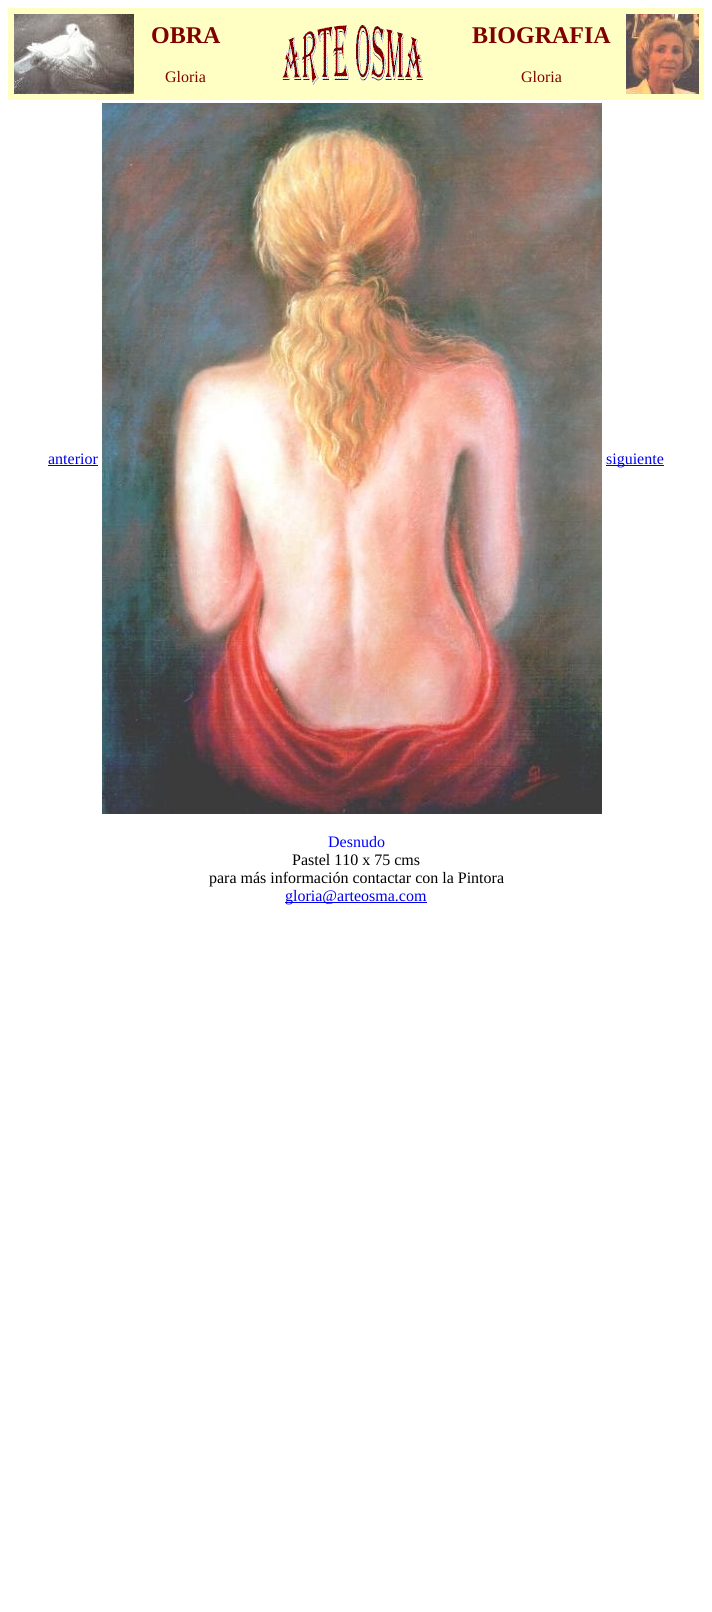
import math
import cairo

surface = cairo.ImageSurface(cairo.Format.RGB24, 712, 1612)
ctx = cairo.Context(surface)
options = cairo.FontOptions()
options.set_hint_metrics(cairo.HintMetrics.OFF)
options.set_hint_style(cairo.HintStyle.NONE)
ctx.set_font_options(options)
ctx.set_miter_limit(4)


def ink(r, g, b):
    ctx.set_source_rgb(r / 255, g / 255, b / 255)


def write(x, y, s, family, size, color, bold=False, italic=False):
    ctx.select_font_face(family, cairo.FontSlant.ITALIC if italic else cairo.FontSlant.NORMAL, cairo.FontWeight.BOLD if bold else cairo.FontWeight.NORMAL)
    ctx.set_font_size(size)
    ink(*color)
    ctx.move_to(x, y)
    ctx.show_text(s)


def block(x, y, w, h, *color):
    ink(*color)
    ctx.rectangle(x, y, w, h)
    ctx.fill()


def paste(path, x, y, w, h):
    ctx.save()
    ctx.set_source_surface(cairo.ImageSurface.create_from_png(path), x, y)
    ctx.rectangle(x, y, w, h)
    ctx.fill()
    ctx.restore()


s1 = dict(family="Liberation Serif", size=24, color=(128, 0, 0), bold=True)
s2 = dict(family="Liberation Serif", size=16, color=(128, 0, 0))
s3 = dict(family="Liberation Serif", size=16, color=(0, 0, 238))
s4 = dict(family="Liberation Serif", size=16, color=(0, 0, 255))
s5 = dict(family="Liberation Serif", size=16, color=(0, 0, 0))

ink(255, 255, 255)
ctx.paint()
block(8, 8, 696, 92, 255, 255, 196)
paste("pic1.png", 14, 14, 120, 80)
write(151, 43, "OBRA", **s1)
write(165, 82, "Gloria", **s2)
paste("pic2.png", 282, 25, 141, 60)
write(472, 43, "BIOGRAFIA", **s1)
write(521, 82, "Gloria", **s2)
paste("pic3.png", 626, 14, 73, 80)
write(48, 464, "anterior", **s3)
block(48, 465, 50, 1, 0, 0, 238)
paste("pic4.png", 102, 103, 500, 711)
block(606, 465, 58, 1, 0, 0, 238)
write(606, 464, "siguiente", **s3)
write(328, 847, "Desnudo", **s4)
write(292, 865, "Pastel 110 x 75 cms", **s5)
write(209, 883, "para más información contactar con la Pintora", **s5)
block(285, 902, 142, 1, 0, 0, 238)
write(285, 901, "gloria@arteosma.com", **s3)
surface.write_to_png("screenshot.png")
